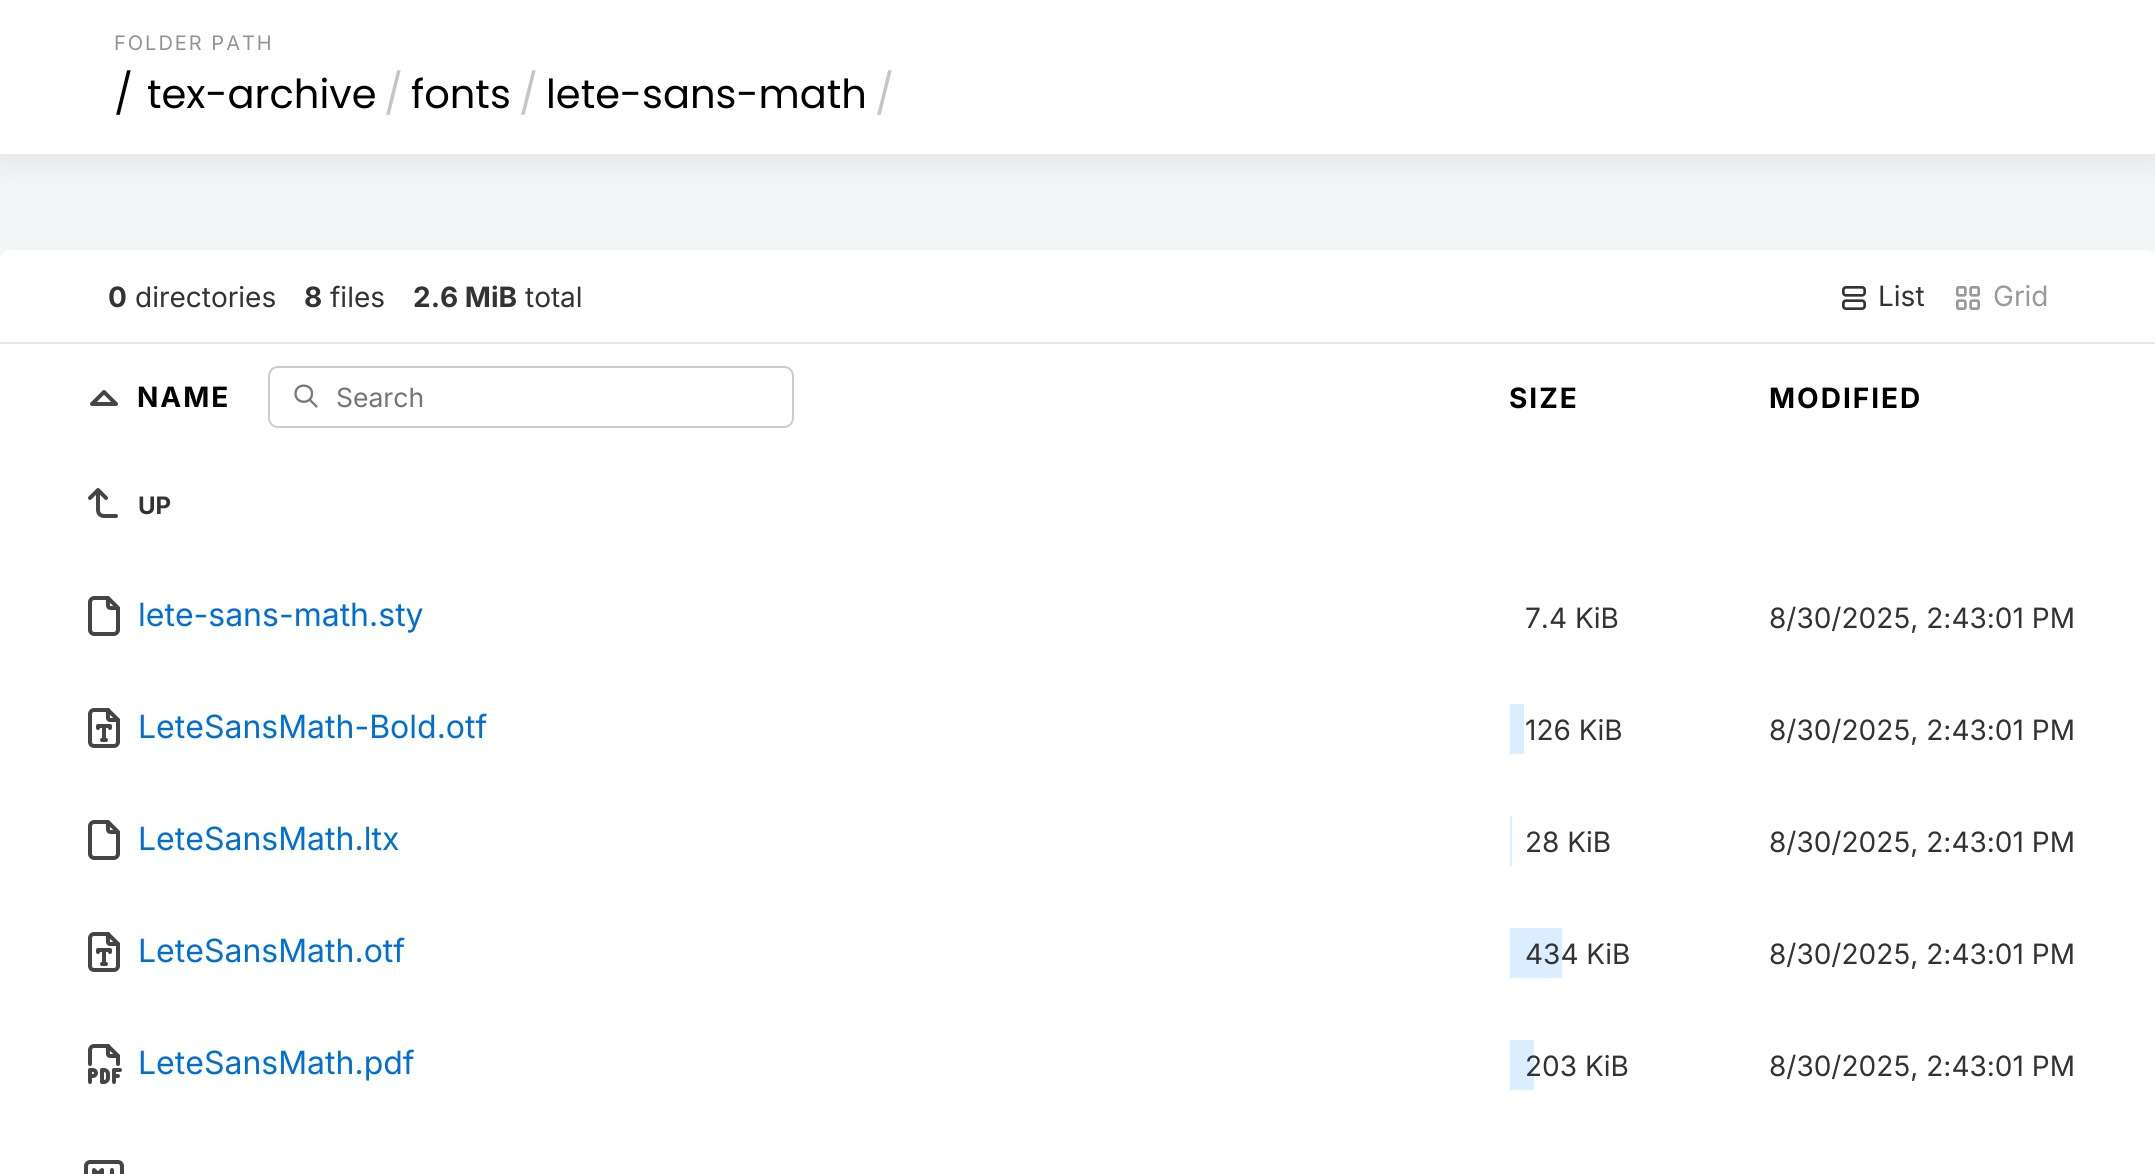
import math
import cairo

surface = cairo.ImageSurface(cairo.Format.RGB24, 2155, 1174)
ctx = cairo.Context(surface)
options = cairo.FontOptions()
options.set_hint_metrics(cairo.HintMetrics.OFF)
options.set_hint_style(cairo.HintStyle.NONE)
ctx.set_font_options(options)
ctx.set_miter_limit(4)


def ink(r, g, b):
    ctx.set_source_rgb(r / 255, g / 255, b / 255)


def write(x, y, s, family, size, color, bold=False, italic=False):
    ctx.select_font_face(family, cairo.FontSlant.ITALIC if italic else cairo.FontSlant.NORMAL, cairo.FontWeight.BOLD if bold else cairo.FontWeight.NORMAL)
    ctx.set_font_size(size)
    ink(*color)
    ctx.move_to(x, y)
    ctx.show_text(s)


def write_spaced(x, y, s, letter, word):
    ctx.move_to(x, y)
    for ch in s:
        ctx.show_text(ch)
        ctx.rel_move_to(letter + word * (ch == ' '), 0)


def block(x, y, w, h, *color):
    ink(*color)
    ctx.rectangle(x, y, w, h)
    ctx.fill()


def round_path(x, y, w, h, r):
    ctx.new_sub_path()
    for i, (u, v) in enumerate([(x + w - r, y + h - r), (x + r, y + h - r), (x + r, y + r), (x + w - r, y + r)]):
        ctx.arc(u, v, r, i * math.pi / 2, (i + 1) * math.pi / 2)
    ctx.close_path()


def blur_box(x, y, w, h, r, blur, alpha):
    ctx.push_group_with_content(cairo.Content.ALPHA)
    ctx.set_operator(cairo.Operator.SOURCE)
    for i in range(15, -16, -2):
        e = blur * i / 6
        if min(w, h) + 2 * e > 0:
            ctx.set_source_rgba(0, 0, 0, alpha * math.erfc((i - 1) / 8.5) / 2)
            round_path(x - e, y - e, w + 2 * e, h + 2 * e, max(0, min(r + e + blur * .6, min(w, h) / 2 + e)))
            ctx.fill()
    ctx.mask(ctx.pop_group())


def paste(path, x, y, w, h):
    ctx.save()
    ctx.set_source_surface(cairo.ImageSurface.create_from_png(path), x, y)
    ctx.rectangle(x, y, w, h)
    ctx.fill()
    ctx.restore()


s1 = dict(family="Poppins", size=40, color=(0, 0, 0))
s2 = dict(family="Poppins", size=40, color=(197, 197, 197))
s3 = dict(family="Inter", size=28, color=(51, 51, 51), bold=True)
s4 = dict(family="Inter", size=28, color=(51, 51, 51))
s5 = dict(family="Inter", size=28, color=(154, 154, 154))
s6 = dict(family="Inter", size=26.5, color=(117, 117, 117))
s7 = dict(family="Inter", size=24, color=(51, 51, 51), bold=True)
s8 = dict(family="Inter", size=32, color=(0, 110, 211))

ink(243, 246, 247)
ctx.paint()
ink(0, 0, 0)
blur_box(0, 0, 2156, 154, 0, 20, 0.1)
block(0, 0, 2155, 154, 255, 255, 255)
ctx.select_font_face("Inter")
ctx.set_font_size(20)
ink(147, 147, 147)
write_spaced(114, 50, "FOLDER PATH", 2, 0)
write(114, 108, "/", **s1)
write(147, 108, "tex-archive", **s1)
write(384, 108, "/", **s2)
write(411, 108, "fonts", **s1)
write(519, 108, "/", **s2)
write(546, 108, "lete-sans-math", **s1)
write(875, 108, "/", **s2)
ink(255, 255, 255)
round_path(0, 250, 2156, 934, 10)
ctx.fill()
block(0, 342, 2155, 2, 229, 233, 234)
write(108, 307, "0", **s3)
write(135, 307, "directories", **s4)
write(304, 307, "8", **s3)
write(330, 307, "files", **s4)
write(413, 307, "2.6 MiB", **s3)
write(525, 307, "total", **s4)
paste("pic1.png", 1842, 286, 24, 24)
write(1878, 306, "List", **s4)
paste("pic2.png", 1956, 286, 24, 24)
write(1993, 306, "Grid", **s5)
ctx.new_path()
ctx.move_to(116, 404)
ctx.line_to(104, 392)
ctx.line_to(92, 404)
ctx.line_to(116, 404)
ink(69, 69, 69)
ctx.set_line_width(4)
ctx.set_line_cap(cairo.LineCap.ROUND)
ctx.set_line_join(cairo.LineJoin.ROUND)
ctx.stroke()
ctx.select_font_face("Inter", cairo.FontSlant.NORMAL, cairo.FontWeight.BOLD)
ink(0, 0, 0)
write_spaced(137, 407, "NAME", 2, 0)
ctx.new_path()
ctx.move_to(295.5, 393.5)
ctx.curve_to(295.5, 404.5, 312, 404.5, 312, 393.5)
ctx.curve_to(312, 383, 295.5, 383, 295.5, 393.5)
ctx.move_to(316.5, 406.5)
ctx.line_to(309.5, 399.5)
ink(119, 119, 119)
ctx.set_line_width(2.3)
ctx.stroke()
round_path(269, 367, 524, 60, 9)
ink(204, 204, 204)
ctx.set_line_width(2)
ctx.set_line_cap(cairo.LineCap.BUTT)
ctx.set_line_join(cairo.LineJoin.MITER)
ctx.stroke()
write(336, 407, "Search", **s6)
ctx.select_font_face("Inter", cairo.FontSlant.NORMAL, cairo.FontWeight.BOLD)
ctx.set_font_size(28)
ink(0, 0, 0)
write_spaced(1509, 408, "SIZE", 2, 0)
write_spaced(1769, 408, "MODIFIED", 2, 0)
ctx.new_path()
ctx.move_to(116, 516)
ctx.line_to(104, 516)
ctx.curve_to(100.5, 516, 98, 513.5, 98, 510)
ctx.line_to(98, 490)
ctx.line_to(90, 498)
ctx.move_to(106, 498)
ctx.line_to(98, 490)
ink(69, 69, 69)
ctx.set_line_width(4)
ctx.set_line_cap(cairo.LineCap.ROUND)
ctx.set_line_join(cairo.LineJoin.ROUND)
ctx.stroke()
write(138, 514, "UP", **s7)
ctx.new_path()
ctx.move_to(108, 598)
ctx.curve_to(108, 609.5, 106.5, 608, 118, 608)
ctx.move_to(114, 634)
ctx.line_to(94, 634)
ctx.curve_to(92, 634, 90, 632, 90, 630)
ctx.line_to(90, 602)
ctx.curve_to(90, 600, 92, 598, 94, 598)
ctx.line_to(108, 598)
ctx.line_to(118, 608)
ctx.line_to(118, 630)
ctx.curve_to(118, 632, 116, 634, 114, 634)
ctx.close_path()
ink(69, 69, 69)
ctx.stroke()
write(138, 626, "lete-sans-math.sty", **s8)
write(1525, 628, "7.4 KiB", **s4)
write(1769, 628, "8/30/2025, 2:43:01 PM", **s4)
paste("pic3.png", 88, 708, 32, 40)
write(138, 738, "LeteSansMath-Bold.otf", **s8)
block(1510, 704, 14, 50, 219, 238, 255)
write(1525, 740, "126 KiB", **s4)
write(1769, 740, "8/30/2025, 2:43:01 PM", **s4)
ctx.new_path()
ctx.move_to(108, 822)
ctx.curve_to(108, 833.5, 106.5, 832, 118, 832)
ctx.move_to(114, 858)
ctx.line_to(94, 858)
ctx.curve_to(92, 858, 90, 856, 90, 854)
ctx.line_to(90, 826)
ctx.curve_to(90, 824, 92, 822, 94, 822)
ctx.line_to(108, 822)
ctx.line_to(118, 832)
ctx.line_to(118, 854)
ctx.curve_to(118, 856, 116, 858, 114, 858)
ctx.close_path()
ink(69, 69, 69)
ctx.stroke()
write(138, 850, "LeteSansMath.ltx", **s8)
block(1510, 816, 2, 50, 219, 238, 255)
write(1525, 852, "28 KiB", **s4)
write(1769, 852, "8/30/2025, 2:43:01 PM", **s4)
paste("pic3.png", 88, 932, 32, 40)
write(138, 962, "LeteSansMath.otf", **s8)
block(1510, 928, 52, 50, 219, 238, 255)
write(1525, 964, "434 KiB", **s4)
write(1769, 964, "8/30/2025, 2:43:01 PM", **s4)
paste("pic4.png", 88, 1044, 34, 40)
write(138, 1074, "LeteSansMath.pdf", **s8)
block(1510, 1040, 24, 50, 219, 238, 255)
write(1525, 1076, "203 KiB", **s4)
write(1769, 1076, "8/30/2025, 2:43:01 PM", **s4)
paste("pic5.png", 84, 1160, 40, 14)
surface.write_to_png("screenshot.png")
